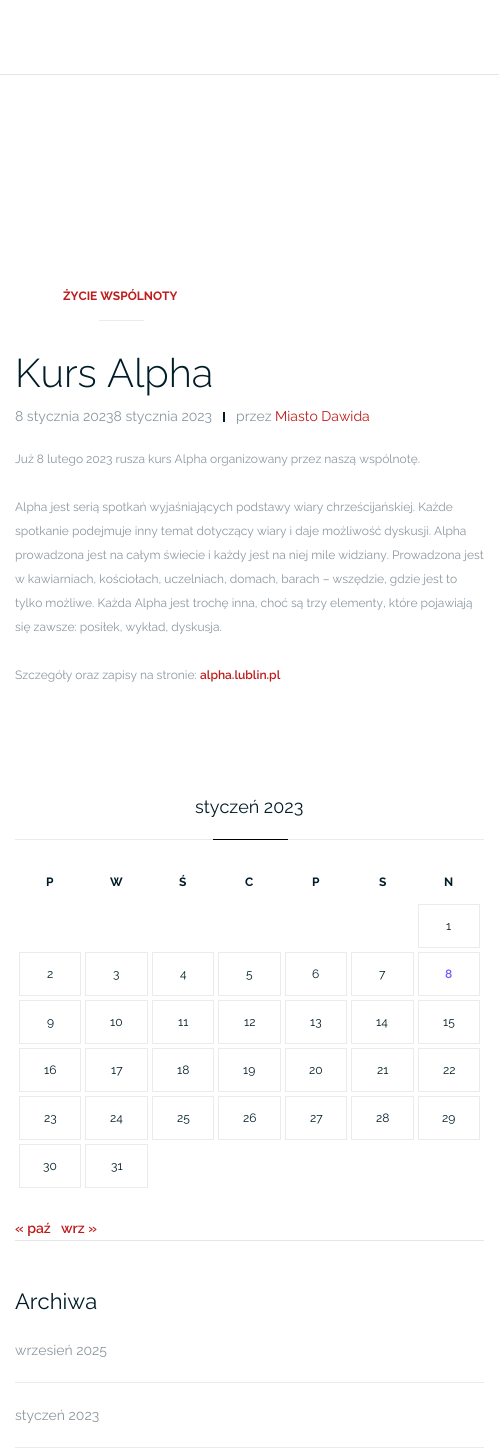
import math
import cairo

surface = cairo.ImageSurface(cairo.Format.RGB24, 499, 1449)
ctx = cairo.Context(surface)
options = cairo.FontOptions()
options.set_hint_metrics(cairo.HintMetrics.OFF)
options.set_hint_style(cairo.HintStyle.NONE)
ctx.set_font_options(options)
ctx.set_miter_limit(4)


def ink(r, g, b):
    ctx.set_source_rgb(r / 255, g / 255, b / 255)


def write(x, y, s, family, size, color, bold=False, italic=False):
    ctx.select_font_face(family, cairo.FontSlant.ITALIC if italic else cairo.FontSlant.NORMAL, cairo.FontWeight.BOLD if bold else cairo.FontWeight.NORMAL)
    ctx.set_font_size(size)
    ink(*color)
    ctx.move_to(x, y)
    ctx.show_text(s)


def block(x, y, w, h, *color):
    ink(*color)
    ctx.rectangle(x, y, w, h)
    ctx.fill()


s1 = dict(family="Raleway", size=12, color=(191, 28, 28), bold=True)
s2 = dict(family="Raleway Light", size=40, color=(0, 28, 40))
s3 = dict(family="Raleway", size=14, color=(140, 151, 158))
s4 = dict(family="Raleway", size=14, color=(191, 28, 28))
s5 = dict(family="Raleway", size=12, color=(140, 151, 158))
s6 = dict(family="Raleway SemiBold", size=12, color=(191, 28, 28))
s7 = dict(family="Raleway", size=18, color=(0, 28, 40))
s8 = dict(family="Raleway", size=12, color=(0, 28, 40), bold=True)
s9 = dict(family="Raleway", size=12, color=(0, 28, 40))
s10 = dict(family="Raleway SemiBold", size=12, color=(116, 92, 249))
s11 = dict(family="Raleway SemiBold", size=14, color=(191, 28, 28))
s12 = dict(family="Raleway", size=22, color=(0, 28, 40))

ink(255, 255, 255)
ctx.paint()
block(0, 74, 499, 1, 230, 230, 230)
write(63, 300, "ŻYCIE WSPÓLNOTY", **s1)
block(99, 320, 45, 1, 235, 235, 235)
write(15, 387, "Kurs Alpha", **s2)
write(15, 421, "8 stycznia 20238 stycznia 2023", **s3)
block(223, 412, 2, 10, 0, 28, 40)
write(236, 421, "przez", **s3)
write(275, 421, "Miasto Dawida", **s4)
write(15, 463, "Już 8 lutego 2023 rusza kurs Alpha organizowany przez naszą wspólnotę.", **s5)
write(15, 511, "Alpha jest serią spotkań wyjaśniających podstawy wiary chrześcijańskiej. Każde", **s5)
write(15, 535, "spotkanie podejmuje inny temat dotyczący wiary i daje możliwość dyskusji. Alpha", **s5)
write(15, 559, "prowadzona jest na całym świecie i każdy jest na niej mile widziany. Prowadzona jest", **s5)
write(15, 583, "w kawiarniach, kościołach, uczelniach, domach, barach – wszędzie, gdzie jest to", **s5)
write(15, 607, "tylko możliwe. Każda Alpha jest trochę inna, choć są trzy elementy, które pojawiają", **s5)
write(15, 631, "się zawsze: posiłek, wykład, dyskusja.", **s5)
write(15, 679, "Szczegóły oraz zapisy na stronie:", **s5)
write(200, 679, "alpha.lublin.pl", **s6)
block(15, 839, 469, 1, 235, 235, 235)
write(195, 813, "styczeń 2023", **s7)
block(213, 839, 75, 1, 0, 0, 0)
write(46, 886, "P", **s8)
write(110, 886, "W", **s8)
write(179, 886, "Ś", **s8)
write(245, 886, "C", **s8)
write(312, 886, "P", **s8)
write(379, 886, "S", **s8)
write(444, 886, "N", **s8)
ctx.rectangle(418.5, 904.5, 61, 43)
ink(235, 235, 235)
ctx.set_line_width(1)
ctx.stroke()
write(446, 930, "1", **s9)
ctx.rectangle(19.5, 952.5, 61, 43)
ink(235, 235, 235)
ctx.stroke()
write(47, 978, "2", **s9)
ctx.rectangle(85.5, 952.5, 62, 43)
ink(235, 235, 235)
ctx.stroke()
write(113, 978, "3", **s9)
ctx.rectangle(152.5, 952.5, 61, 43)
ink(235, 235, 235)
ctx.stroke()
write(180, 978, "4", **s9)
ctx.rectangle(218.5, 952.5, 62, 43)
ink(235, 235, 235)
ctx.stroke()
write(246, 978, "5", **s9)
ctx.rectangle(285.5, 952.5, 61, 43)
ink(235, 235, 235)
ctx.stroke()
write(312, 978, "6", **s9)
ctx.rectangle(351.5, 952.5, 62, 43)
ink(235, 235, 235)
ctx.stroke()
write(379, 978, "7", **s9)
ctx.rectangle(418.5, 952.5, 61, 43)
ink(235, 235, 235)
ctx.stroke()
write(445, 978, "8", **s10)
ctx.rectangle(19.5, 1000.5, 61, 43)
ink(235, 235, 235)
ctx.stroke()
write(47, 1026, "9", **s9)
ctx.rectangle(85.5, 1000.5, 62, 43)
ink(235, 235, 235)
ctx.stroke()
write(110, 1026, "10", **s9)
ctx.rectangle(152.5, 1000.5, 61, 43)
ink(235, 235, 235)
ctx.stroke()
write(178, 1026, "11", **s9)
ctx.rectangle(218.5, 1000.5, 62, 43)
ink(235, 235, 235)
ctx.stroke()
write(244, 1026, "12", **s9)
ctx.rectangle(285.5, 1000.5, 61, 43)
ink(235, 235, 235)
ctx.stroke()
write(310, 1026, "13", **s9)
ctx.rectangle(351.5, 1000.5, 62, 43)
ink(235, 235, 235)
ctx.stroke()
write(376, 1026, "14", **s9)
ctx.rectangle(418.5, 1000.5, 61, 43)
ink(235, 235, 235)
ctx.stroke()
write(443, 1026, "15", **s9)
ctx.rectangle(19.5, 1048.5, 61, 43)
ink(235, 235, 235)
ctx.stroke()
write(44, 1074, "16", **s9)
ctx.rectangle(85.5, 1048.5, 62, 43)
ink(235, 235, 235)
ctx.stroke()
write(111, 1074, "17", **s9)
ctx.rectangle(152.5, 1048.5, 61, 43)
ink(235, 235, 235)
ctx.stroke()
write(177, 1074, "18", **s9)
ctx.rectangle(218.5, 1048.5, 62, 43)
ink(235, 235, 235)
ctx.stroke()
write(243, 1074, "19", **s9)
ctx.rectangle(285.5, 1048.5, 61, 43)
ink(235, 235, 235)
ctx.stroke()
write(309, 1074, "20", **s9)
ctx.rectangle(351.5, 1048.5, 62, 43)
ink(235, 235, 235)
ctx.stroke()
write(377, 1074, "21", **s9)
ctx.rectangle(418.5, 1048.5, 61, 43)
ink(235, 235, 235)
ctx.stroke()
write(443, 1074, "22", **s9)
ctx.rectangle(19.5, 1096.5, 61, 43)
ink(235, 235, 235)
ctx.stroke()
write(44, 1122, "23", **s9)
ctx.rectangle(85.5, 1096.5, 62, 43)
ink(235, 235, 235)
ctx.stroke()
write(110, 1122, "24", **s9)
ctx.rectangle(152.5, 1096.5, 61, 43)
ink(235, 235, 235)
ctx.stroke()
write(177, 1122, "25", **s9)
ctx.rectangle(218.5, 1096.5, 62, 43)
ink(235, 235, 235)
ctx.stroke()
write(243, 1122, "26", **s9)
ctx.rectangle(285.5, 1096.5, 61, 43)
ink(235, 235, 235)
ctx.stroke()
write(310, 1122, "27", **s9)
ctx.rectangle(351.5, 1096.5, 62, 43)
ink(235, 235, 235)
ctx.stroke()
write(376, 1122, "28", **s9)
ctx.rectangle(418.5, 1096.5, 61, 43)
ink(235, 235, 235)
ctx.stroke()
write(442, 1122, "29", **s9)
ctx.rectangle(19.5, 1144.5, 61, 43)
ink(235, 235, 235)
ctx.stroke()
write(43, 1170, "30", **s9)
ctx.rectangle(85.5, 1144.5, 62, 43)
ink(235, 235, 235)
ctx.stroke()
write(111, 1170, "31", **s9)
block(15, 1240, 469, 1, 230, 230, 230)
write(15, 1233, "« paź", **s11)
write(61, 1233, "wrz »", **s11)
write(15, 1309, "Archiwa", **s12)
block(15, 1382, 469, 1, 235, 235, 235)
write(15, 1355, "wrzesień 2025", **s3)
block(15, 1447, 469, 1, 235, 235, 235)
write(15, 1420, "styczeń 2023", **s3)
surface.write_to_png("screenshot.png")
